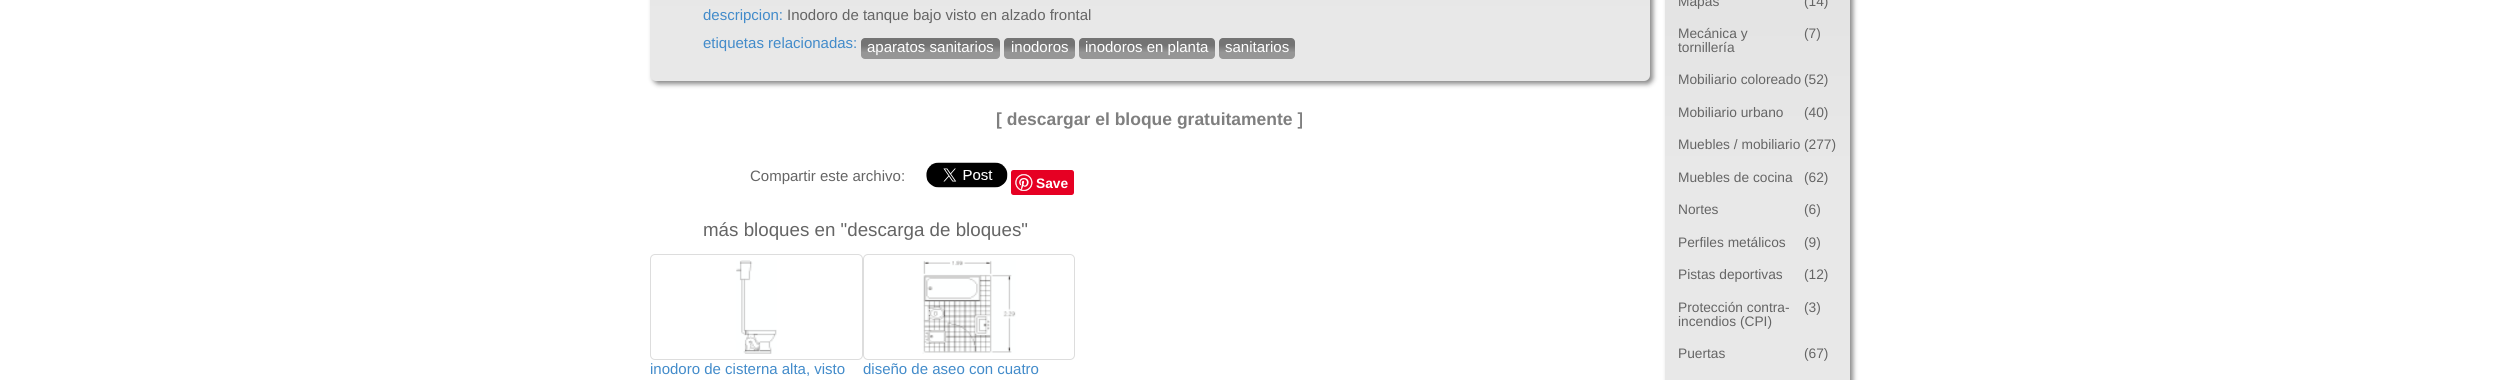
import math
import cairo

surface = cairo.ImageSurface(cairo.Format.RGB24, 2500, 380)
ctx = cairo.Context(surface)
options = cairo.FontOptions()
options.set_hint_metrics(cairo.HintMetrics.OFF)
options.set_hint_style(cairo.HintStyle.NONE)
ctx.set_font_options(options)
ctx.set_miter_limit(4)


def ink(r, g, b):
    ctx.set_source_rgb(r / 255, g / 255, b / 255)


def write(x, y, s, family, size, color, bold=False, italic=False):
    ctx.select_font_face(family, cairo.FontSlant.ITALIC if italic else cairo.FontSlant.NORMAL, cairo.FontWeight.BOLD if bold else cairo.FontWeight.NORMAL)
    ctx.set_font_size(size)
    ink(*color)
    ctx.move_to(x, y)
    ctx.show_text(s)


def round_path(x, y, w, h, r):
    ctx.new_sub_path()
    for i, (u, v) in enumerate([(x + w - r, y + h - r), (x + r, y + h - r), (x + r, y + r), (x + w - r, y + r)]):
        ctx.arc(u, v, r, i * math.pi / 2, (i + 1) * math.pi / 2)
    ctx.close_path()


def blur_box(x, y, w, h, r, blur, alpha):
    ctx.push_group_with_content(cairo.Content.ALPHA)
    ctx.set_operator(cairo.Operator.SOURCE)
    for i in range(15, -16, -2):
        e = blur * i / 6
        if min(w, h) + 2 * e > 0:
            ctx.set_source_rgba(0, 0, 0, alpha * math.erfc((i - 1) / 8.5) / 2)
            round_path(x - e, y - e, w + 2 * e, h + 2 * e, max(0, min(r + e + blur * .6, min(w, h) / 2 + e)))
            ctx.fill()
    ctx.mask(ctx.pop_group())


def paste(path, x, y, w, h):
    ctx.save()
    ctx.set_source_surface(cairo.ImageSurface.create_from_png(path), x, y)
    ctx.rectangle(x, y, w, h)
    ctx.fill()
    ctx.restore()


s1 = dict(family="Liberation Sans", size=15, color=(66, 139, 202))
s2 = dict(family="Liberation Sans", size=15, color=(101, 101, 101))
s3 = dict(family="Liberation Sans", size=15, color=(255, 255, 255))
s4 = dict(family="Liberation Sans", size=17.5, color=(127, 127, 127), bold=True)
s5 = dict(family="Liberation Sans", size=13.75, color=(255, 255, 255), bold=True)
s6 = dict(family="Liberation Sans", size=18.75, color=(101, 101, 101))
s7 = dict(family="Liberation Sans", size=13.75, color=(101, 101, 101))

ink(255, 255, 255)
ctx.paint()
ink(136, 136, 136)
blur_box(653, -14, 1000, 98, 6, 2.5, 1)
gradient = cairo.LinearGradient(650, 81, 650, -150)
gradient.add_color_stop_rgba(0.31, 0.91, 0.91, 0.91, 1)
gradient.add_color_stop_rgba(0.65, 0.859, 0.859, 0.859, 1)
ctx.set_source(gradient)
round_path(650, -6, 1000, 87, 6)
ctx.fill()
write(703, 20, "descripcion:", **s1)
write(787, 20, "Inodoro de tanque bajo visto en alzado frontal", **s2)
write(703, 48, "etiquetas relacionadas:", **s1)
gradient = cairo.LinearGradient(861, 59, 861, 38)
gradient.add_color_stop_rgba(0.31, 0.588, 0.588, 0.588, 1)
gradient.add_color_stop_rgba(0.65, 0.455, 0.455, 0.455, 1)
ctx.set_source(gradient)
round_path(861, 38, 139, 21, 4)
ctx.fill()
write(867, 52, "aparatos sanitarios", **s3)
gradient = cairo.LinearGradient(1004, 59, 1004, 38)
gradient.add_color_stop_rgba(0.31, 0.588, 0.588, 0.588, 1)
gradient.add_color_stop_rgba(0.65, 0.455, 0.455, 0.455, 1)
ctx.set_source(gradient)
round_path(1004, 38, 71, 21, 4)
ctx.fill()
write(1011, 52, "inodoros", **s3)
gradient = cairo.LinearGradient(1079, 59, 1079, 38)
gradient.add_color_stop_rgba(0.31, 0.588, 0.588, 0.588, 1)
gradient.add_color_stop_rgba(0.65, 0.455, 0.455, 0.455, 1)
ctx.set_source(gradient)
round_path(1079, 38, 136, 21, 4)
ctx.fill()
write(1085, 52, "inodoros en planta", **s3)
gradient = cairo.LinearGradient(1219, 59, 1219, 38)
gradient.add_color_stop_rgba(0.31, 0.588, 0.588, 0.588, 1)
gradient.add_color_stop_rgba(0.65, 0.455, 0.455, 0.455, 1)
ctx.set_source(gradient)
round_path(1219, 38, 76, 21, 4)
ctx.fill()
write(1225, 52, "sanitarios", **s3)
write(996, 125, "[ descargar el bloque gratuitamente ]", **s4)
write(750, 181, "Compartir este archivo:", **s2)
paste("pic1.png", 926, 162, 82, 26)
ink(230, 0, 35)
round_path(1011, 170, 63, 25, 2.5)
ctx.fill()
paste("pic2.png", 1015, 174, 18, 17)
write(1036, 188, "Save", **s5)
write(703, 236, "más bloques en \"descarga de bloques\"", **s6)
round_path(650.5, 254.5, 212, 105, 4.5)
ink(221, 221, 221)
ctx.set_line_width(1)
ctx.stroke()
paste("pic3.png", 736, 260, 41, 94)
write(650, 374, "inodoro de cisterna alta, visto", **s1)
round_path(863.5, 254.5, 211, 105, 4.5)
ink(221, 221, 221)
ctx.stroke()
paste("pic4.png", 922, 260, 94, 94)
write(863, 374, "diseño de aseo con cuatro", **s1)
ink(136, 136, 136)
blur_box(1668, -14, 185, 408, 6, 2.5, 1)
gradient = cairo.LinearGradient(1665, 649, 1665, -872)
gradient.add_color_stop_rgba(0.31, 0.91, 0.91, 0.91, 1)
gradient.add_color_stop_rgba(0.65, 0.859, 0.859, 0.859, 1)
ctx.set_source(gradient)
ctx.rectangle(1665, 0, 185, 380)
ctx.fill()
write(1678, 6, "Mapas", **s7)
write(1804, 6, "(14)", **s7)
write(1678, 38, "Mecánica y", **s7)
write(1678, 52, "tornillería", **s7)
write(1804, 38, "(7)", **s7)
write(1678, 84, "Mobiliario coloreado", **s7)
write(1804, 84, "(52)", **s7)
write(1678, 117, "Mobiliario urbano", **s7)
write(1804, 117, "(40)", **s7)
write(1678, 149, "Muebles / mobiliario", **s7)
write(1804, 149, "(277)", **s7)
write(1678, 182, "Muebles de cocina", **s7)
write(1804, 182, "(62)", **s7)
write(1678, 214, "Nortes", **s7)
write(1804, 214, "(6)", **s7)
write(1678, 247, "Perfiles metálicos", **s7)
write(1804, 247, "(9)", **s7)
write(1678, 279, "Pistas deportivas", **s7)
write(1804, 279, "(12)", **s7)
write(1678, 312, "Protección contra-", **s7)
write(1678, 326, "incendios (CPI)", **s7)
write(1804, 312, "(3)", **s7)
write(1678, 358, "Puertas", **s7)
write(1804, 358, "(67)", **s7)
surface.write_to_png("screenshot.png")
